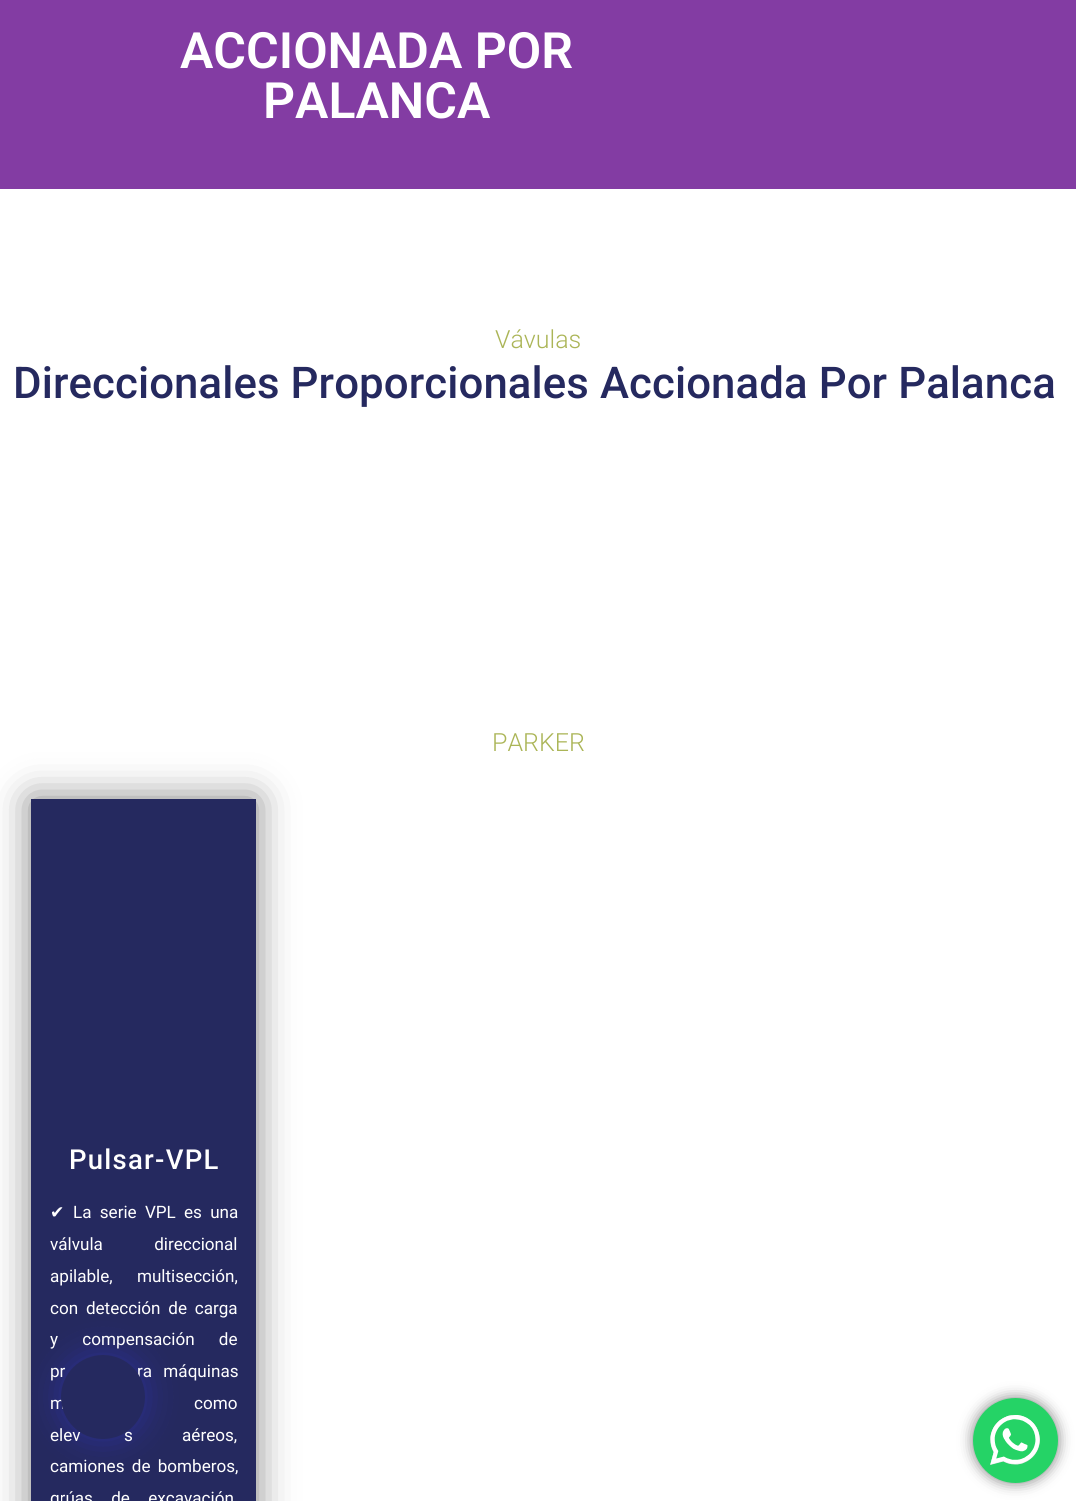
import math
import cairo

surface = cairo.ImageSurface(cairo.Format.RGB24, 1076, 1501)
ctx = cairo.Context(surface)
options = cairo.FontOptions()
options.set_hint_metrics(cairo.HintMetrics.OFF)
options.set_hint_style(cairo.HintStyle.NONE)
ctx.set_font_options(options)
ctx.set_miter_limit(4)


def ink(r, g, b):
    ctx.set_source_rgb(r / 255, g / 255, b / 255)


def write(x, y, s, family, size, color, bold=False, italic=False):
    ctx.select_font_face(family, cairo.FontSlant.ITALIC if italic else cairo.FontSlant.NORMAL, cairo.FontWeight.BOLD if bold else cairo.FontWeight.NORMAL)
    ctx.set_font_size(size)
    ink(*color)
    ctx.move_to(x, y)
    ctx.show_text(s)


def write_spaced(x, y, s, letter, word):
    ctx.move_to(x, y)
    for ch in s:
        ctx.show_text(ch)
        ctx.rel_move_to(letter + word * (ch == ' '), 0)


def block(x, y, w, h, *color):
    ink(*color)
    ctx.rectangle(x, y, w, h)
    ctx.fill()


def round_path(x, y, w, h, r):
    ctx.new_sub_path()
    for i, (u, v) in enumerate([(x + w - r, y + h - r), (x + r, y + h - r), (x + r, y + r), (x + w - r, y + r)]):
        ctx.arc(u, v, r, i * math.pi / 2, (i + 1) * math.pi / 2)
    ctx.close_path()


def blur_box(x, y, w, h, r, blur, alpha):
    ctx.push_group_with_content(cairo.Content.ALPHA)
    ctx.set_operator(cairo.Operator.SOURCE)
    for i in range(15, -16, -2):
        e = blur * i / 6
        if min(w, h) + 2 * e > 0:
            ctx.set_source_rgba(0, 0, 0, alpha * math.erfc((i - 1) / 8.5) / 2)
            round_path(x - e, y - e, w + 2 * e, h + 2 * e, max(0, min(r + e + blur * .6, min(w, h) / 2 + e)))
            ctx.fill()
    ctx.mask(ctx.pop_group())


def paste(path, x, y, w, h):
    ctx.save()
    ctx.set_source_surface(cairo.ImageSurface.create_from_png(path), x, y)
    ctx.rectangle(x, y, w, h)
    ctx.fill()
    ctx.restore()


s1 = dict(family="Roboto SemiBold", size=50, color=(255, 255, 255))
s2 = dict(family="Roboto Light", size=25, color=(171, 181, 87))
s3 = dict(family="DejaVu Sans", size=17.1, color=(255, 255, 255))

ink(255, 255, 255)
ctx.paint()
block(0, 0, 1076, 189, 131, 60, 163)
write(180, 68, "ACCIONADA POR", **s1)
write(263, 118, "PALANCA", **s1)
write(495, 348, "Vávulas", **s2)
ctx.select_font_face("Roboto Medium")
ctx.set_font_size(43.75)
ink(37, 41, 95)
write_spaced(13, 398, "Direccionales Proporcionales Accionada Por Palanca", 0.1, 0)
ink(0, 0, 0)
blur_box(31, 799, 225, 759, 0, 19, 0.5)
block(31, 799, 225, 702, 37, 41, 95)
ink(53, 56, 240)
blur_box(61, 1355, 84, 84, 42, 15.5, 0.35)
ctx.select_font_face("Roboto")
ctx.set_font_size(17.1)
ink(255, 255, 255)
write_spaced(50, 1377, "pr", 0, 7)
write_spaced(137, 1377, "ra máquinas", 0, 7)
write_spaced(50, 1409, "m", 0, 81)
write_spaced(50, 1441, "elev", 0, 45)
write_spaced(124, 1441, "s aéreos,", 0, 45)
ink(37, 41, 95)
ctx.new_path()
ctx.arc(103, 1397, 42, 0, 2 * math.pi)
ctx.fill()
write(492, 751, "PARKER", **s2)
ctx.select_font_face("Roboto Medium")
ctx.set_font_size(27.5)
ink(255, 255, 255)
write_spaced(69, 1169, "Pulsar-VPL", 1.25, 0)
write(50, 1218, "✔", **s3)
ctx.select_font_face("Roboto")
write_spaced(73, 1218, "La serie VPL es una", 0, 4)
write_spaced(50, 1250, "válvula direccional", 0, 47)
write_spaced(50, 1282, "apilable, multisección,", 0, 20)
write_spaced(50, 1314, "con detección de carga", 0, 3.5)
write_spaced(50, 1345, "y compensación de", 0, 20)
write_spaced(194, 1409, "como", 0, 81)
write_spaced(50, 1472, "camiones de bomberos,", 0, 3)
write_spaced(50, 1504, "grúas de excavación", 0, 14)
ink(0, 0, 0)
blur_box(973, 1398, 85, 85, 42.5, 7, 0.5)
ink(37, 211, 102)
ctx.arc(1015.5, 1440.5, 42.5, 0, 2 * math.pi)
ctx.fill()
paste("pic1.png", 990, 1415, 50, 50)
surface.write_to_png("screenshot.png")
